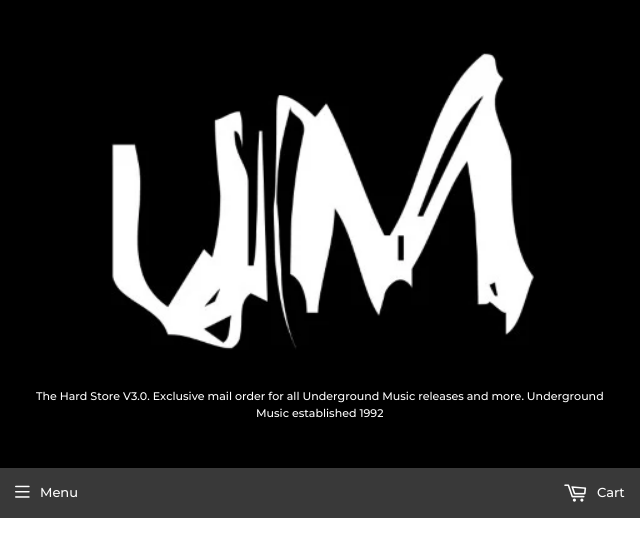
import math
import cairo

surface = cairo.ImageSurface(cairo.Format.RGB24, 640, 535)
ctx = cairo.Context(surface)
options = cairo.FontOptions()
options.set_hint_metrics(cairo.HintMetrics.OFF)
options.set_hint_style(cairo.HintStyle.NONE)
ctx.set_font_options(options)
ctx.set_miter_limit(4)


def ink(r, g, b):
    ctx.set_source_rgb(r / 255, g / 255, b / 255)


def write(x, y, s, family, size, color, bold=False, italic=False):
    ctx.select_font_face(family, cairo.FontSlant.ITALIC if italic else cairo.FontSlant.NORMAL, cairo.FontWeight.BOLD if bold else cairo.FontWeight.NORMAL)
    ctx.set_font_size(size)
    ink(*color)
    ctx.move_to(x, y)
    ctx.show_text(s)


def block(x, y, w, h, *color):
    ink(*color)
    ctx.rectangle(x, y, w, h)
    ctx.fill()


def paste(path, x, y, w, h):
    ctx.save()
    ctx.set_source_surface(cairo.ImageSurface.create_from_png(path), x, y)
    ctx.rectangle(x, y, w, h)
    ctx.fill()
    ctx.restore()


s1 = dict(family="Montserrat Medium", size=11.05, color=(255, 255, 255))
s2 = dict(family="Montserrat Medium", size=13, color=(255, 255, 255))

ink(255, 255, 255)
ctx.paint()
block(0, 0, 640, 468, 0, 0, 0)
paste("pic1.png", 111, 50, 424, 300)
write(36, 400, "The Hard Store V3.0. Exclusive mail order for all Underground Music releases and more. Underground", **s1)
write(256, 417, "Music established 1992", **s1)
block(0, 468, 640, 50, 57, 57, 57)
paste("pic2.png", 15, 485, 15, 13)
write(40, 497, "Menu", **s2)
paste("pic3.png", 564, 484, 23, 18)
write(597, 497, "Cart", **s2)
surface.write_to_png("screenshot.png")
